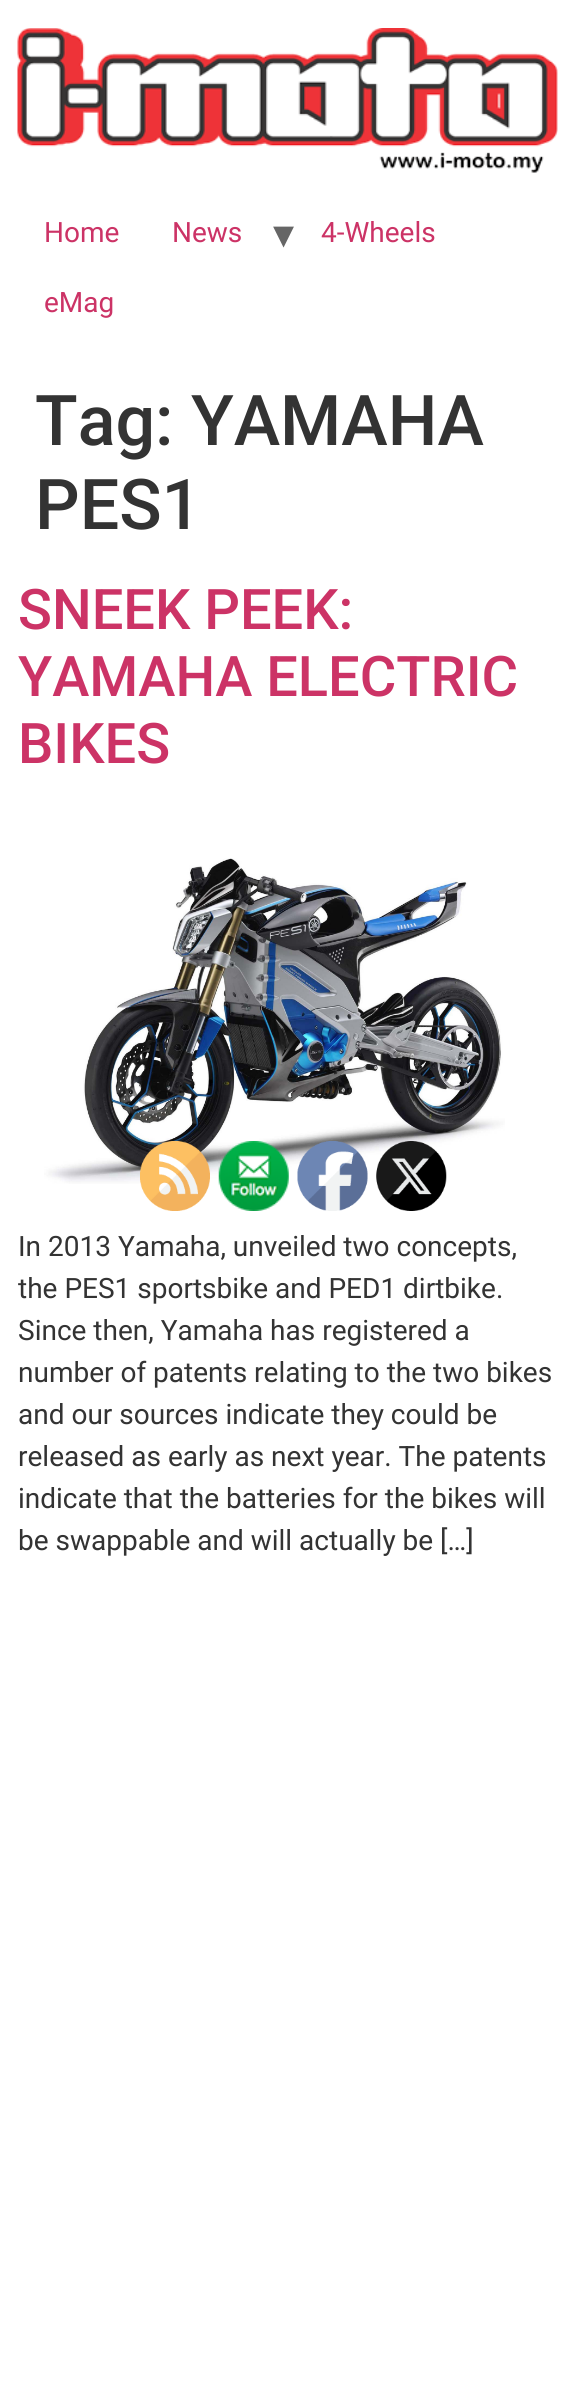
import math
import cairo

surface = cairo.ImageSurface(cairo.Format.RGB24, 579, 2384)
ctx = cairo.Context(surface)
options = cairo.FontOptions()
options.set_hint_metrics(cairo.HintMetrics.OFF)
options.set_hint_style(cairo.HintStyle.NONE)
ctx.set_font_options(options)
ctx.set_miter_limit(4)


def ink(r, g, b):
    ctx.set_source_rgb(r / 255, g / 255, b / 255)


def write(x, y, s, family, size, color, bold=False, italic=False):
    ctx.select_font_face(family, cairo.FontSlant.ITALIC if italic else cairo.FontSlant.NORMAL, cairo.FontWeight.BOLD if bold else cairo.FontWeight.NORMAL)
    ctx.set_font_size(size)
    ink(*color)
    ctx.move_to(x, y)
    ctx.show_text(s)


def paste(path, x, y, w, h):
    ctx.save()
    ctx.set_source_surface(cairo.ImageSurface.create_from_png(path), x, y)
    ctx.rectangle(x, y, w, h)
    ctx.fill()
    ctx.restore()


s1 = dict(family="Roboto", size=28, color=(204, 51, 102))
s2 = dict(family="DejaVu Sans", size=42, color=(102, 102, 102))
s3 = dict(family="Roboto Medium", size=70, color=(51, 51, 51))
s4 = dict(family="Roboto Medium", size=56, color=(204, 51, 102))
s5 = dict(family="Roboto", size=28, color=(51, 51, 51))

ink(255, 255, 255)
ctx.paint()
paste("pic1.png", 17, 28, 541, 145)
write(44, 242, "Home", **s1)
write(172, 242, "News", **s1)
write(273, 248, "▾", **s2)
write(321, 242, "4-Wheels", **s1)
write(44, 312, "eMag", **s1)
write(35, 445, "Tag: YAMAHA", **s3)
write(35, 529, "PES1", **s3)
write(18, 629, "SNEEK PEEK:", **s4)
write(18, 696, "YAMAHA ELECTRIC", **s4)
write(18, 763, "BIKES", **s4)
paste("pic2.png", 44, 858, 461, 326)
write(18, 1256, "In 2013 Yamaha, unveiled two concepts,", **s5)
write(18, 1298, "the PES1 sportsbike and PED1 dirtbike.", **s5)
write(18, 1340, "Since then, Yamaha has registered a", **s5)
write(18, 1382, "number of patents relating to the two bikes", **s5)
write(18, 1424, "and our sources indicate they could be", **s5)
write(18, 1466, "released as early as next year. The patents", **s5)
write(18, 1508, "indicate that the batteries for the bikes will", **s5)
write(18, 1550, "be swappable and will actually be […]", **s5)
paste("pic3.png", 140, 1141, 70, 70)
paste("pic4.png", 218, 1141, 71, 70)
paste("pic5.png", 297, 1141, 71, 70)
paste("pic6.png", 376, 1141, 71, 70)
surface.write_to_png("screenshot.png")
